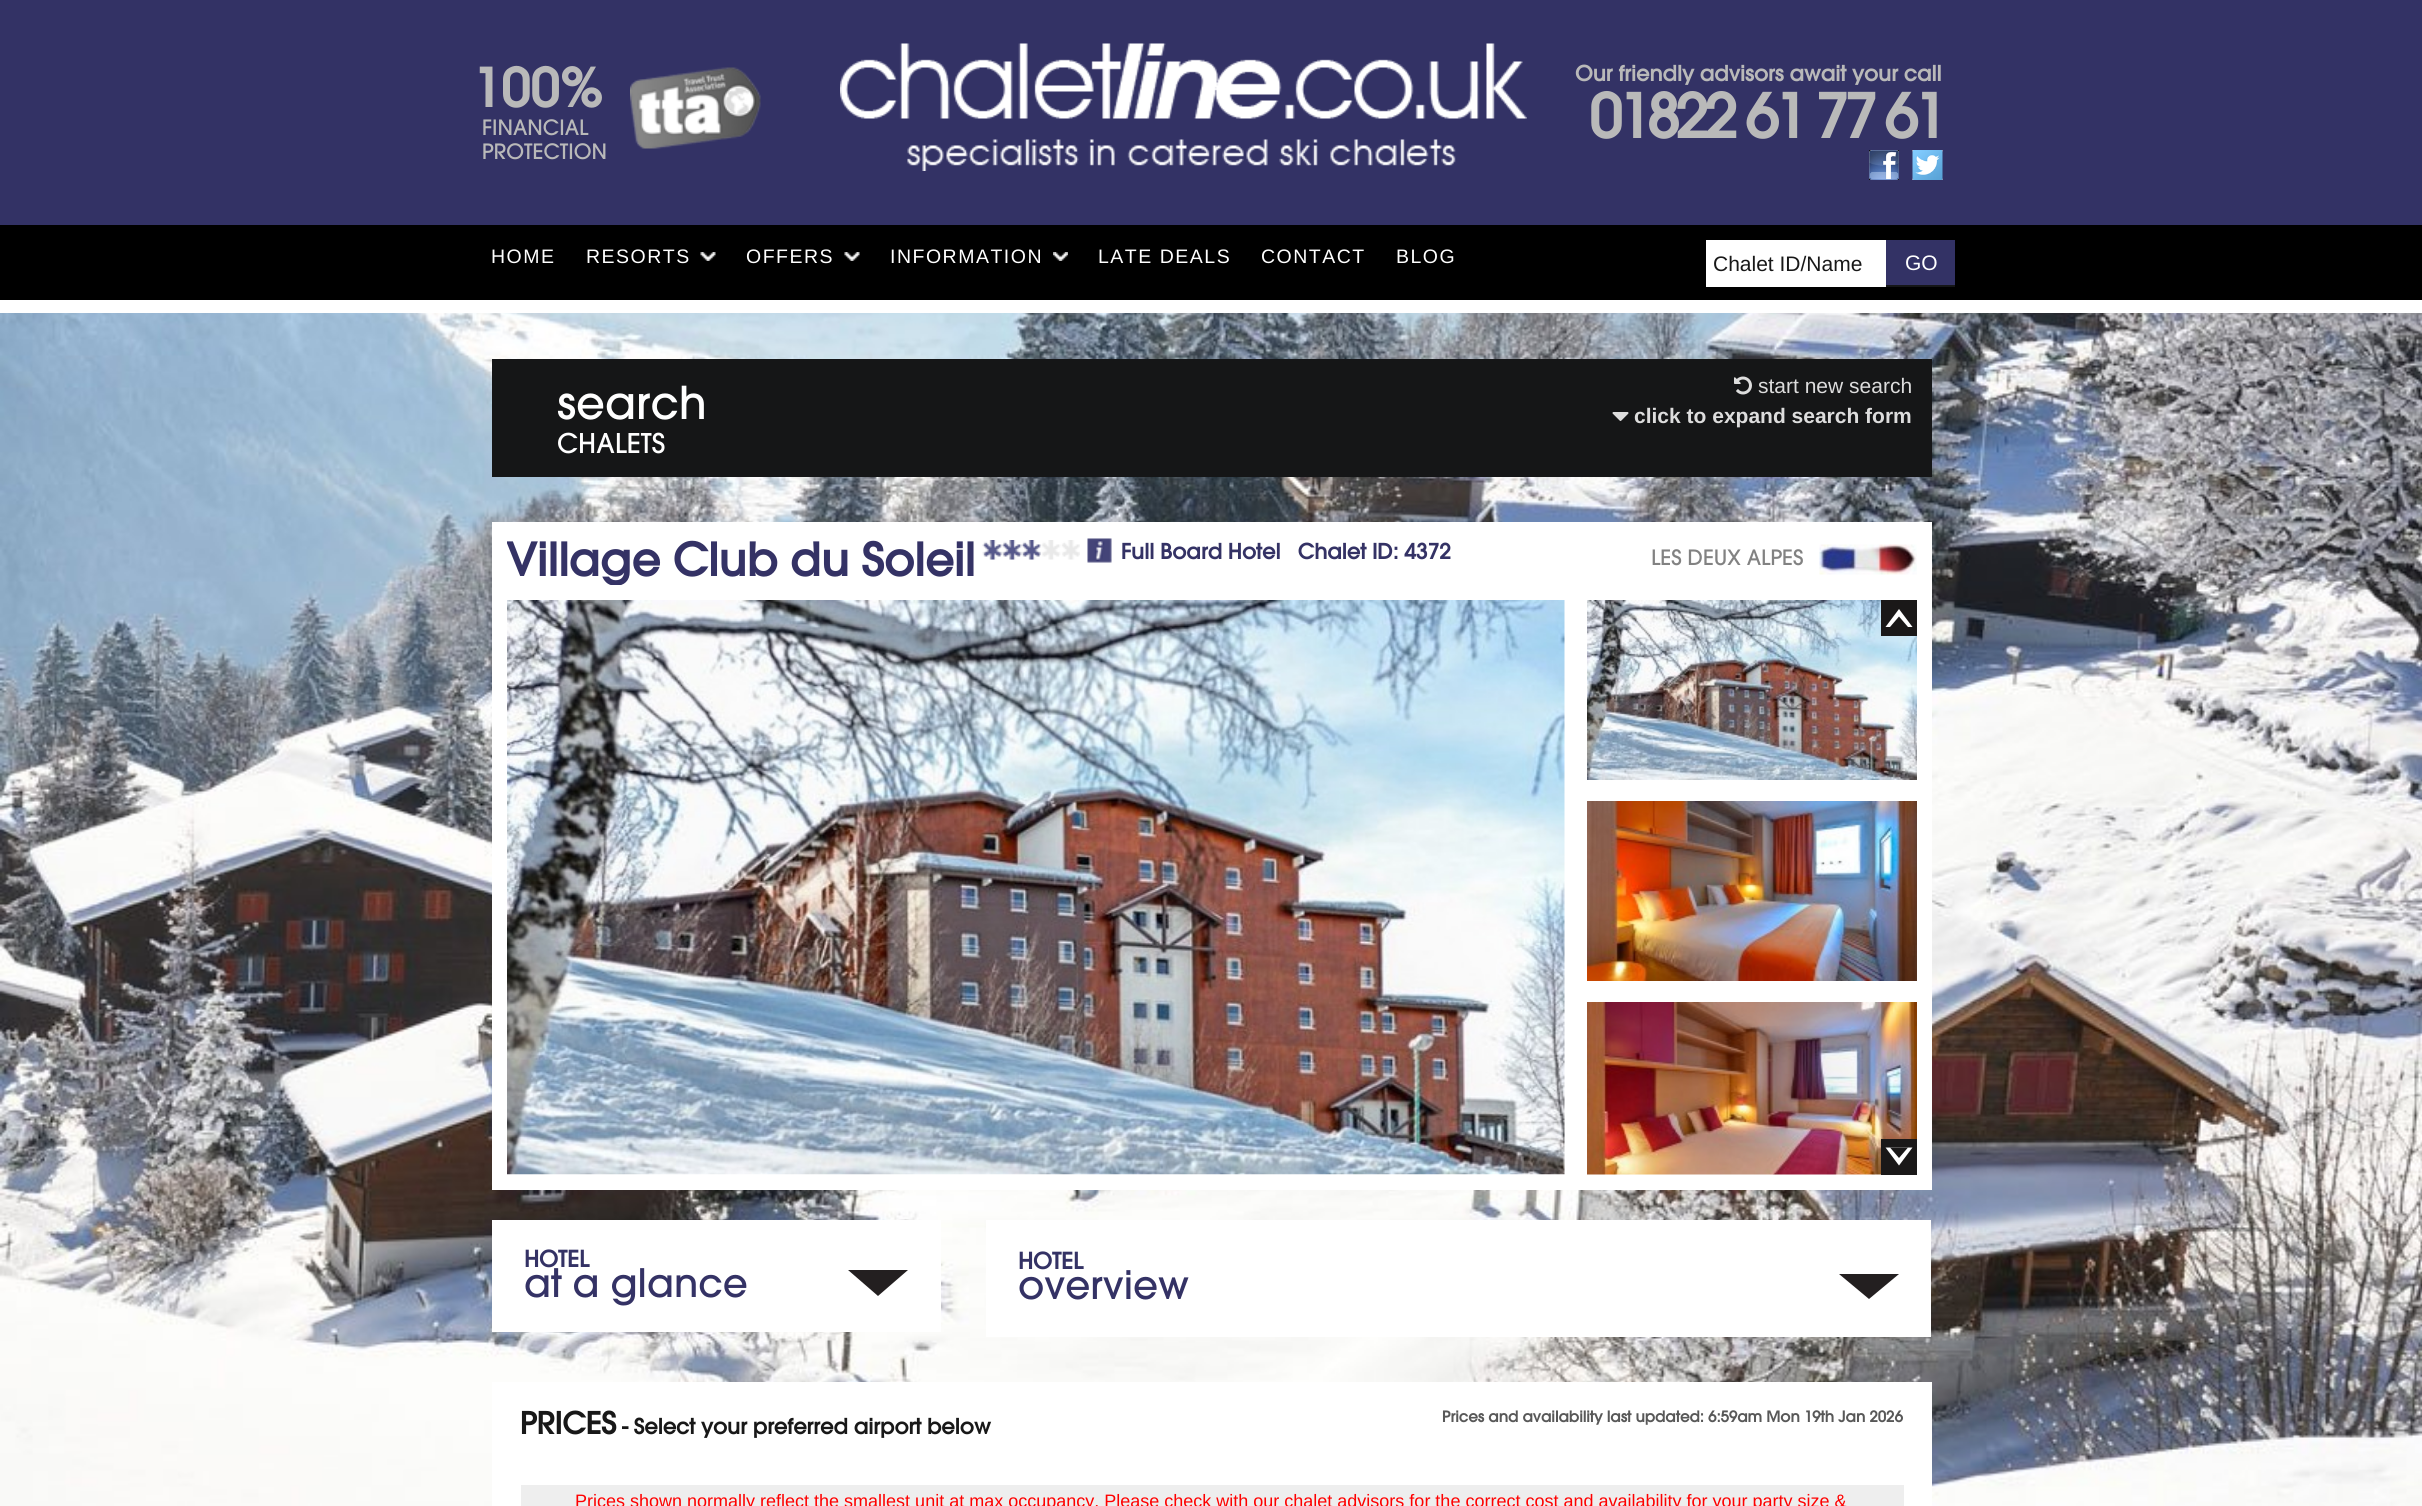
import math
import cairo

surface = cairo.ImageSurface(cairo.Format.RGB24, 2422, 1506)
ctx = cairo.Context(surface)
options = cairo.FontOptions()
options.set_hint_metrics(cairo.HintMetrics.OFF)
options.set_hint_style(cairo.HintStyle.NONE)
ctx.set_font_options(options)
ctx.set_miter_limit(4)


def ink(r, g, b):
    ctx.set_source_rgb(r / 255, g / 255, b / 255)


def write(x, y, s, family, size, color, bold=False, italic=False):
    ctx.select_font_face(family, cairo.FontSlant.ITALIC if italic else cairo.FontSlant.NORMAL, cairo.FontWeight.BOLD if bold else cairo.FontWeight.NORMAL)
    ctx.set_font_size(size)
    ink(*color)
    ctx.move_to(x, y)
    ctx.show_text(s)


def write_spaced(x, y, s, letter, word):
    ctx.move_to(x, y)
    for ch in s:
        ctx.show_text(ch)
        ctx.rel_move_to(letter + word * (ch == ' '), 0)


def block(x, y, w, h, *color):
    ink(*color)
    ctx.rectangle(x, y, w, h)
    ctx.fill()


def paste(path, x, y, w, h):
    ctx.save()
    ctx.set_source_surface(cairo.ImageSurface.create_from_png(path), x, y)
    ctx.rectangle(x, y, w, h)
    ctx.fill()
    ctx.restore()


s1 = dict(family="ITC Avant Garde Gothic", size=52.5, color=(185, 185, 185), bold=True)
s2 = dict(family="ITC Avant Garde Gothic Medium", size=21, color=(185, 185, 185))
s3 = dict(family="ITC Avant Garde Gothic", size=21, color=(185, 185, 185), bold=True)
s4 = dict(family="Liberation Sans", size=21, color=(24, 24, 24))
s5 = dict(family="Liberation Sans", size=21, color=(255, 255, 255))
s6 = dict(family="ITC Avant Garde Gothic Medium", size=45, color=(255, 255, 255))
s7 = dict(family="ITC Avant Garde Gothic Medium", size=27, color=(255, 255, 255))
s8 = dict(family="Liberation Sans", size=21, color=(221, 221, 221))
s9 = dict(family="Liberation Sans", size=21, color=(221, 221, 221), bold=True)
s10 = dict(family="ITC Avant Garde Gothic", size=45, color=(52, 50, 101), bold=True)
s11 = dict(family="ITC Avant Garde Gothic", size=21, color=(52, 50, 101), bold=True)
s12 = dict(family="ITC Avant Garde Gothic Medium", size=21, color=(130, 130, 130))
s13 = dict(family="ITC Avant Garde Gothic", size=22.5, color=(52, 50, 101), bold=True)
s14 = dict(family="ITC Avant Garde Gothic Medium", size=39, color=(52, 50, 101))
s15 = dict(family="ITC Avant Garde Gothic", size=30, color=(24, 24, 24), bold=True)
s16 = dict(family="ITC Avant Garde Gothic", size=21, color=(24, 24, 24), bold=True)
s17 = dict(family="ITC Avant Garde Gothic", size=15, color=(88, 88, 88), bold=True)
s18 = dict(family="Liberation Sans", size=18, color=(255, 0, 0))

ink(51, 50, 101)
ctx.paint()
block(0, 300, 2422, 13, 255, 255, 255)
write(472, 107, "100%", **s1)
write(482, 135, "FINANCIAL", **s2)
write(482, 159, "PROTECTION", **s2)
paste("pic1.png", 630, 67, 131, 82)
paste("pic2.png", 840, 43, 687, 128)
write(1575, 81, "Our friendly advisors await your call", **s3)
ctx.set_font_size(60)
write_spaced(1589, 138, "01822 61 77 61", -4.5, 0)
paste("pic3.png", 1869, 150, 30, 30)
paste("pic4.png", 1912, 150, 31, 30)
block(0, 225, 2422, 75, 0, 0, 0)
ctx.select_font_face("Liberation Sans")
ctx.set_font_size(19.5)
ink(255, 255, 255)
write_spaced(491, 263, "HOME", 1.5, 0)
write_spaced(586, 263, "RESORTS", 1.5, 0)
paste("pic5.png", 700, 252, 16, 9)
write_spaced(746, 263, "OFFERS", 1.5, 0)
paste("pic6.png", 844, 252, 16, 9)
write_spaced(890, 263, "INFORMATION", 1.5, 0)
paste("pic7.png", 1053, 252, 15, 9)
write_spaced(1098, 263, "LATE DEALS", 1.5, 0)
write_spaced(1261, 263, "CONTACT", 1.5, 0)
write_spaced(1396, 263, "BLOG", 1.5, 0)
block(1886, 285, 69, 2, 21, 22, 23)
block(1706, 240, 180, 47, 255, 255, 255)
write(1713, 271, "Chalet ID/Name", **s4)
block(1886, 240, 69, 45, 51, 50, 101)
write(1905, 270, "GO", **s5)
paste("pic8.png", 0, 313, 2422, 1193)
block(492, 359, 1440, 118, 21, 22, 23)
write(557, 419, "search", **s6)
write(557, 453, "CHALETS", **s7)
paste("pic9.png", 1734, 376, 18, 19)
write(1758, 393, "start new search", **s8)
paste("pic10.png", 1612, 412, 17, 9)
write(1634, 423, "click to expand search form", **s9)
block(492, 522, 1440, 668, 255, 255, 255)
ctx.save()
ctx.rectangle(507, 537, 1410, 48)
ctx.clip()
write(506, 576, "Village Club du Soleil", **s10)
ctx.restore()
paste("pic11.png", 983, 540, 97, 20)
paste("pic12.png", 982, 540, 59, 20)
paste("pic13.png", 1087, 538, 25, 25)
write(1121, 559, "Full Board Hotel   Chalet ID: 4372", **s11)
write(1651, 565, "LES DEUX ALPES", **s12)
paste("pic14.png", 1819, 544, 98, 31)
paste("pic15.png", 507, 600, 1058, 575)
paste("pic16.png", 1587, 600, 330, 180)
paste("pic17.png", 1587, 801, 330, 180)
paste("pic18.png", 1587, 1002, 330, 173)
block(1881, 600, 36, 36, 26, 24, 24)
ink(255, 255, 255)
ctx.new_path()
ctx.move_to(1912.5, 627)
ctx.line_to(1885.5, 627)
ctx.line_to(1899, 609)
ctx.close_path()
ctx.fill()
ink(26, 24, 24)
ctx.new_path()
ctx.move_to(1908, 627)
ctx.line_to(1890, 627)
ctx.line_to(1899, 616.5)
ctx.close_path()
ctx.fill()
block(1881, 1139, 36, 36, 26, 24, 24)
ink(255, 255, 255)
ctx.new_path()
ctx.move_to(1885.5, 1147.5)
ctx.line_to(1912.5, 1147.5)
ctx.line_to(1899, 1165.5)
ctx.close_path()
ctx.fill()
ink(26, 24, 24)
ctx.new_path()
ctx.move_to(1890, 1147.5)
ctx.line_to(1908, 1147.5)
ctx.line_to(1899, 1158)
ctx.close_path()
ctx.fill()
block(492, 1220, 449, 112, 255, 255, 255)
write(524, 1267, "HOTEL", **s13)
write(524, 1297, "at a glance", **s14)
ink(35, 31, 32)
ctx.new_path()
ctx.move_to(848, 1270)
ctx.line_to(908, 1270)
ctx.line_to(878, 1296)
ctx.close_path()
ctx.fill()
block(986, 1220, 945, 117, 255, 255, 255)
write(1018, 1269, "HOTEL", **s13)
write(1018, 1299, "overview", **s14)
ink(35, 31, 32)
ctx.new_path()
ctx.move_to(1839, 1274)
ctx.line_to(1899, 1274)
ctx.line_to(1869, 1299)
ctx.close_path()
ctx.fill()
block(492, 1382, 1440, 124, 255, 255, 255)
write(520, 1434, "PRICES", **s15)
write(622, 1434, "- Select your preferred airport below", **s16)
write(1442, 1422, "Prices and availability last updated: 6:59am Mon 19th Jan 2026", **s17)
block(521, 1485, 1383, 21, 238, 238, 238)
write(575, 1507, "Prices shown normally reflect the smallest unit at max occupancy. Please check with our chalet advisors for the correct cost and availability for your party size &", **s18)
surface.write_to_png("screenshot.png")
